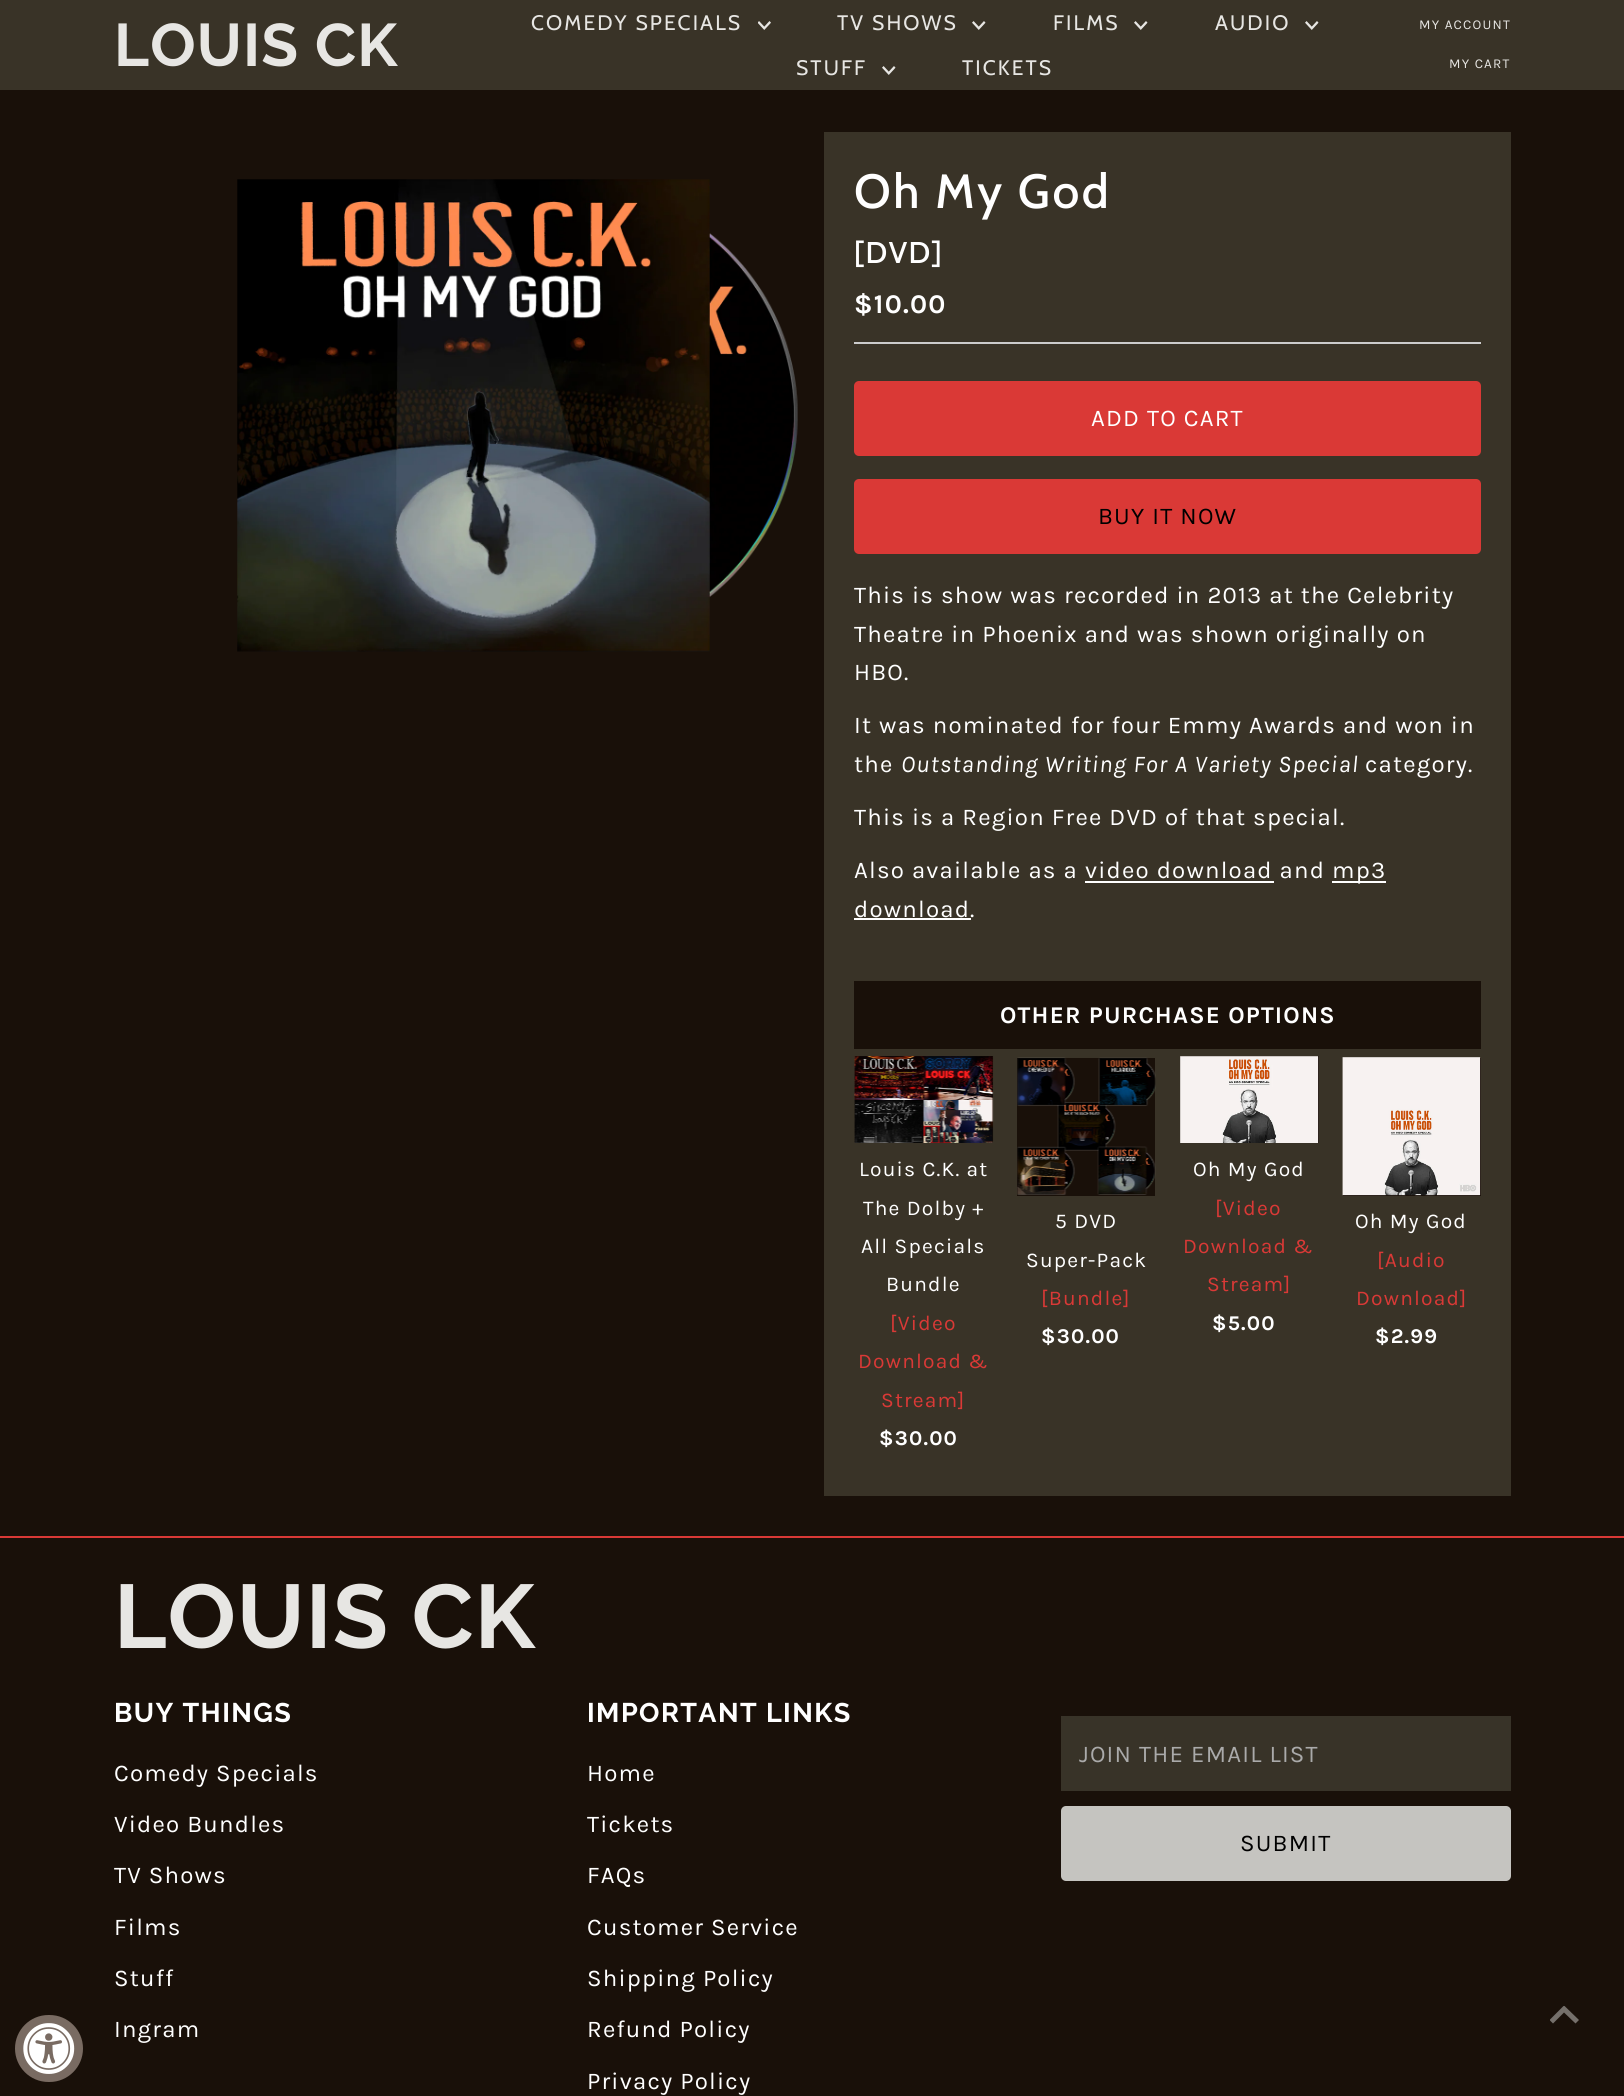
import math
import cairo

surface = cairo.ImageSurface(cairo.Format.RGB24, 1624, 2096)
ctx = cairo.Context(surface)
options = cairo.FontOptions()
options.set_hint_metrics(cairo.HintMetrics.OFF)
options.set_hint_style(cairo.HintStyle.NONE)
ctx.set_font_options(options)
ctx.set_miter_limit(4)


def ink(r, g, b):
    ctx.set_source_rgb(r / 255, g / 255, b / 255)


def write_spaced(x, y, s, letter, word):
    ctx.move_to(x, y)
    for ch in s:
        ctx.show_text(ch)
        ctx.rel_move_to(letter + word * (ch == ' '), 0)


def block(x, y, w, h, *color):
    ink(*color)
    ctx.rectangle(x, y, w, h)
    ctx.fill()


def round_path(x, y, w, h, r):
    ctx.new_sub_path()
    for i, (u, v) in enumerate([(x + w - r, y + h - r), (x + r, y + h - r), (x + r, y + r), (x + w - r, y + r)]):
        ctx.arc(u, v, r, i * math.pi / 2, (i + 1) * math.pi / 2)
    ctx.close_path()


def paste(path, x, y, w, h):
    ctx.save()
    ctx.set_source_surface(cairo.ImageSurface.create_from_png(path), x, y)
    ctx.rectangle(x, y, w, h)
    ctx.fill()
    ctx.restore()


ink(25, 16, 9)
ctx.paint()
ink(121, 107, 98)
round_path(15, 2015, 68, 67, 33.5)
ctx.fill()
paste("pic1.png", 23, 2023, 52, 51)
block(0, 0, 1624, 90, 57, 51, 39)
ctx.select_font_face("Raleway", cairo.FontSlant.NORMAL, cairo.FontWeight.BOLD)
ctx.set_font_size(60)
ink(231, 230, 227)
write_spaced(114, 66, "LOUIS CK", 1.2, 0)
ctx.select_font_face("Cabin")
ctx.set_font_size(21)
write_spaced(531, 30, "COMEDY SPECIALS", 2.1, 0)
paste("pic2.png", 758, 21, 13, 9)
write_spaced(837, 30, "TV SHOWS", 2.1, 0)
paste("pic3.png", 972, 21, 14, 9)
write_spaced(1053, 30, "FILMS", 2.1, 0)
paste("pic3.png", 1134, 21, 14, 9)
write_spaced(1215, 30, "AUDIO", 2.1, 0)
paste("pic3.png", 1305, 21, 14, 9)
write_spaced(796, 75, "STUFF", 2.1, 0)
paste("pic3.png", 882, 66, 14, 9)
write_spaced(962, 75, "TICKETS", 2.1, 0)
ctx.select_font_face("Karla")
ctx.set_font_size(13.5)
write_spaced(1419, 29, "MY ACCOUNT", 1.2, 0)
write_spaced(1449, 68, "MY CART", 1.2, 0)
paste("pic4.png", 237, 179, 561, 473)
block(824, 132, 687, 1364, 57, 51, 39)
block(854, 342, 627, 2, 204, 204, 204)
ctx.select_font_face("Cabin Medium")
ctx.set_font_size(48)
ink(255, 255, 255)
write_spaced(854, 208, "Oh My God", 2.5, 0)
ctx.set_font_size(30)
write_spaced(854, 263, "[DVD]", 1.5, 0)
ctx.select_font_face("Karla", cairo.FontSlant.NORMAL, cairo.FontWeight.BOLD)
ctx.set_font_size(27)
write_spaced(854, 313, "$10.00", 1.2, 0)
ink(218, 57, 54)
round_path(854, 381, 627, 75, 5)
ctx.fill()
ctx.select_font_face("Karla")
ctx.set_font_size(24)
ink(255, 255, 255)
write_spaced(1091, 426, "ADD TO CART", 1.2, 0)
ink(218, 57, 54)
round_path(854, 479, 627, 75, 5)
ctx.fill()
ink(0, 0, 0)
write_spaced(1098, 524, "BUY IT NOW", 1.2, 0)
ink(255, 255, 255)
write_spaced(854, 603, "This is show was recorded in 2013 at the Celebrity", 1.2, 0)
write_spaced(854, 642, "Theatre in Phoenix and was shown originally on", 1.2, 0)
write_spaced(854, 680, "HBO.", 1.2, 0)
write_spaced(854, 733, "It was nominated for four Emmy Awards and won in", 1.2, 0)
write_spaced(854, 772, "the", 1.2, 0)
ctx.select_font_face("Karla", cairo.FontSlant.ITALIC)
write_spaced(901, 772, "Outstanding Writing For A Variety Special", 1.2, 0)
ctx.select_font_face("Karla")
write_spaced(1365, 772, "category.", 1.2, 0)
write_spaced(854, 825, "This is a Region Free DVD of that special.", 1.2, 0)
write_spaced(854, 878, "Also available as a video download and", 1.2, 0)
block(1332, 881, 54, 2, 255, 255, 255)
write_spaced(1332, 878, "mp3", 1.2, 0)
block(1085, 881, 189, 2, 255, 255, 255)
write_spaced(854, 917, "download.", 1.2, 0)
block(854, 918, 117, 2, 255, 255, 255)
block(854, 981, 627, 68, 25, 16, 9)
ctx.select_font_face("Karla", cairo.FontSlant.NORMAL, cairo.FontWeight.BOLD)
ink(255, 255, 255)
write_spaced(1000, 1023, "OTHER PURCHASE OPTIONS", 1.2, 0)
block(855, 1056, 138, 87, 25, 16, 9)
paste("pic5.png", 854, 1056, 140, 87)
ctx.select_font_face("Karla")
ctx.set_font_size(21)
ink(255, 255, 255)
write_spaced(859, 1176, "Louis C.K. at", 1.2, 0)
write_spaced(863, 1215, "The Dolby +", 1.2, 0)
write_spaced(861, 1253, "All Specials", 1.2, 0)
write_spaced(886, 1291, "Bundle", 1.2, 0)
ink(218, 57, 54)
write_spaced(890, 1330, "[Video", 1.2, 0)
write_spaced(858, 1368, "Download &", 1.2, 0)
write_spaced(881, 1407, "Stream]", 1.2, 0)
ctx.select_font_face("Karla", cairo.FontSlant.NORMAL, cairo.FontWeight.BOLD)
ink(255, 255, 255)
write_spaced(879, 1445, "$30.00", 1.2, 0)
block(1017, 1058, 138, 138, 25, 16, 9)
paste("pic6.png", 1017, 1057, 139, 138)
ctx.select_font_face("Karla")
ink(255, 255, 255)
write_spaced(1055, 1228, "5 DVD", 1.2, 0)
write_spaced(1026, 1267, "Super-Pack", 1.2, 0)
ink(218, 57, 54)
write_spaced(1041, 1305, "[Bundle]", 1.2, 0)
ctx.select_font_face("Karla", cairo.FontSlant.NORMAL, cairo.FontWeight.BOLD)
ink(255, 255, 255)
write_spaced(1041, 1343, "$30.00", 1.2, 0)
block(1181, 1056, 138, 87, 25, 16, 9)
paste("pic7.png", 1180, 1056, 139, 87)
ctx.select_font_face("Karla")
ink(255, 255, 255)
write_spaced(1193, 1176, "Oh My God", 1.2, 0)
ink(218, 57, 54)
write_spaced(1215, 1215, "[Video", 1.2, 0)
write_spaced(1183, 1253, "Download &", 1.2, 0)
write_spaced(1207, 1291, "Stream]", 1.2, 0)
ctx.select_font_face("Karla", cairo.FontSlant.NORMAL, cairo.FontWeight.BOLD)
ink(255, 255, 255)
write_spaced(1212, 1330, "$5.00", 1.2, 0)
block(1343, 1058, 138, 138, 25, 16, 9)
paste("pic8.png", 1342, 1057, 139, 139)
ctx.select_font_face("Karla")
ink(255, 255, 255)
write_spaced(1355, 1228, "Oh My God", 1.2, 0)
ink(218, 57, 54)
write_spaced(1377, 1267, "[Audio", 1.2, 0)
write_spaced(1356, 1305, "Download]", 1.2, 0)
ctx.select_font_face("Karla", cairo.FontSlant.NORMAL, cairo.FontWeight.BOLD)
ink(255, 255, 255)
write_spaced(1375, 1343, "$2.99", 1.2, 0)
block(0, 1536, 1624, 2, 218, 57, 54)
ctx.select_font_face("Raleway", cairo.FontSlant.NORMAL, cairo.FontWeight.BOLD)
ctx.set_font_size(90)
ink(231, 230, 227)
write_spaced(114, 1648, "LOUIS CK", 1.2, 0)
ctx.set_font_size(27)
ink(255, 255, 255)
write_spaced(114, 1722, "BUY THINGS", 1.4, 0)
ctx.select_font_face("Karla")
ctx.set_font_size(24)
write_spaced(114, 1781, "Comedy Specials", 1.2, 0)
write_spaced(114, 1832, "Video Bundles", 1.2, 0)
write_spaced(114, 1883, "TV Shows", 1.2, 0)
write_spaced(114, 1935, "Films", 1.2, 0)
write_spaced(114, 1986, "Stuff", 1.2, 0)
write_spaced(114, 2037, "Ingram", 1.2, 0)
ctx.select_font_face("Raleway", cairo.FontSlant.NORMAL, cairo.FontWeight.BOLD)
ctx.set_font_size(27)
write_spaced(587, 1722, "IMPORTANT LINKS", 1.4, 0)
ctx.select_font_face("Karla")
ctx.set_font_size(24)
write_spaced(587, 1781, "Home", 1.2, 0)
write_spaced(587, 1832, "Tickets", 1.2, 0)
write_spaced(587, 1883, "FAQs", 1.2, 0)
write_spaced(587, 1935, "Customer Service", 1.2, 0)
write_spaced(587, 1986, "Shipping Policy", 1.2, 0)
write_spaced(587, 2037, "Refund Policy", 1.2, 0)
write_spaced(587, 2089, "Privacy Policy", 1.2, 0)
block(1061, 1716, 450, 75, 56, 51, 40)
ink(170, 170, 170)
write_spaced(1079, 1762, "JOIN THE EMAIL LIST", 1.2, 0)
ink(197, 196, 192)
round_path(1061, 1806, 450, 75, 5)
ctx.fill()
ink(0, 0, 0)
write_spaced(1240, 1851, "SUBMIT", 1.2, 0)
ctx.save()
ctx.rectangle(1550, 2006, 30, 18)
ctx.clip()
ink(117, 112, 107)
ctx.new_path()
ctx.move_to(1564, 2005.5)
ctx.line_to(1549.5, 2020)
ctx.line_to(1553, 2023.5)
ctx.line_to(1564, 2012.5)
ctx.line_to(1575.5, 2023.5)
ctx.line_to(1579, 2020)
ctx.close_path()
ctx.fill()
ctx.restore()
surface.write_to_png("screenshot.png")
